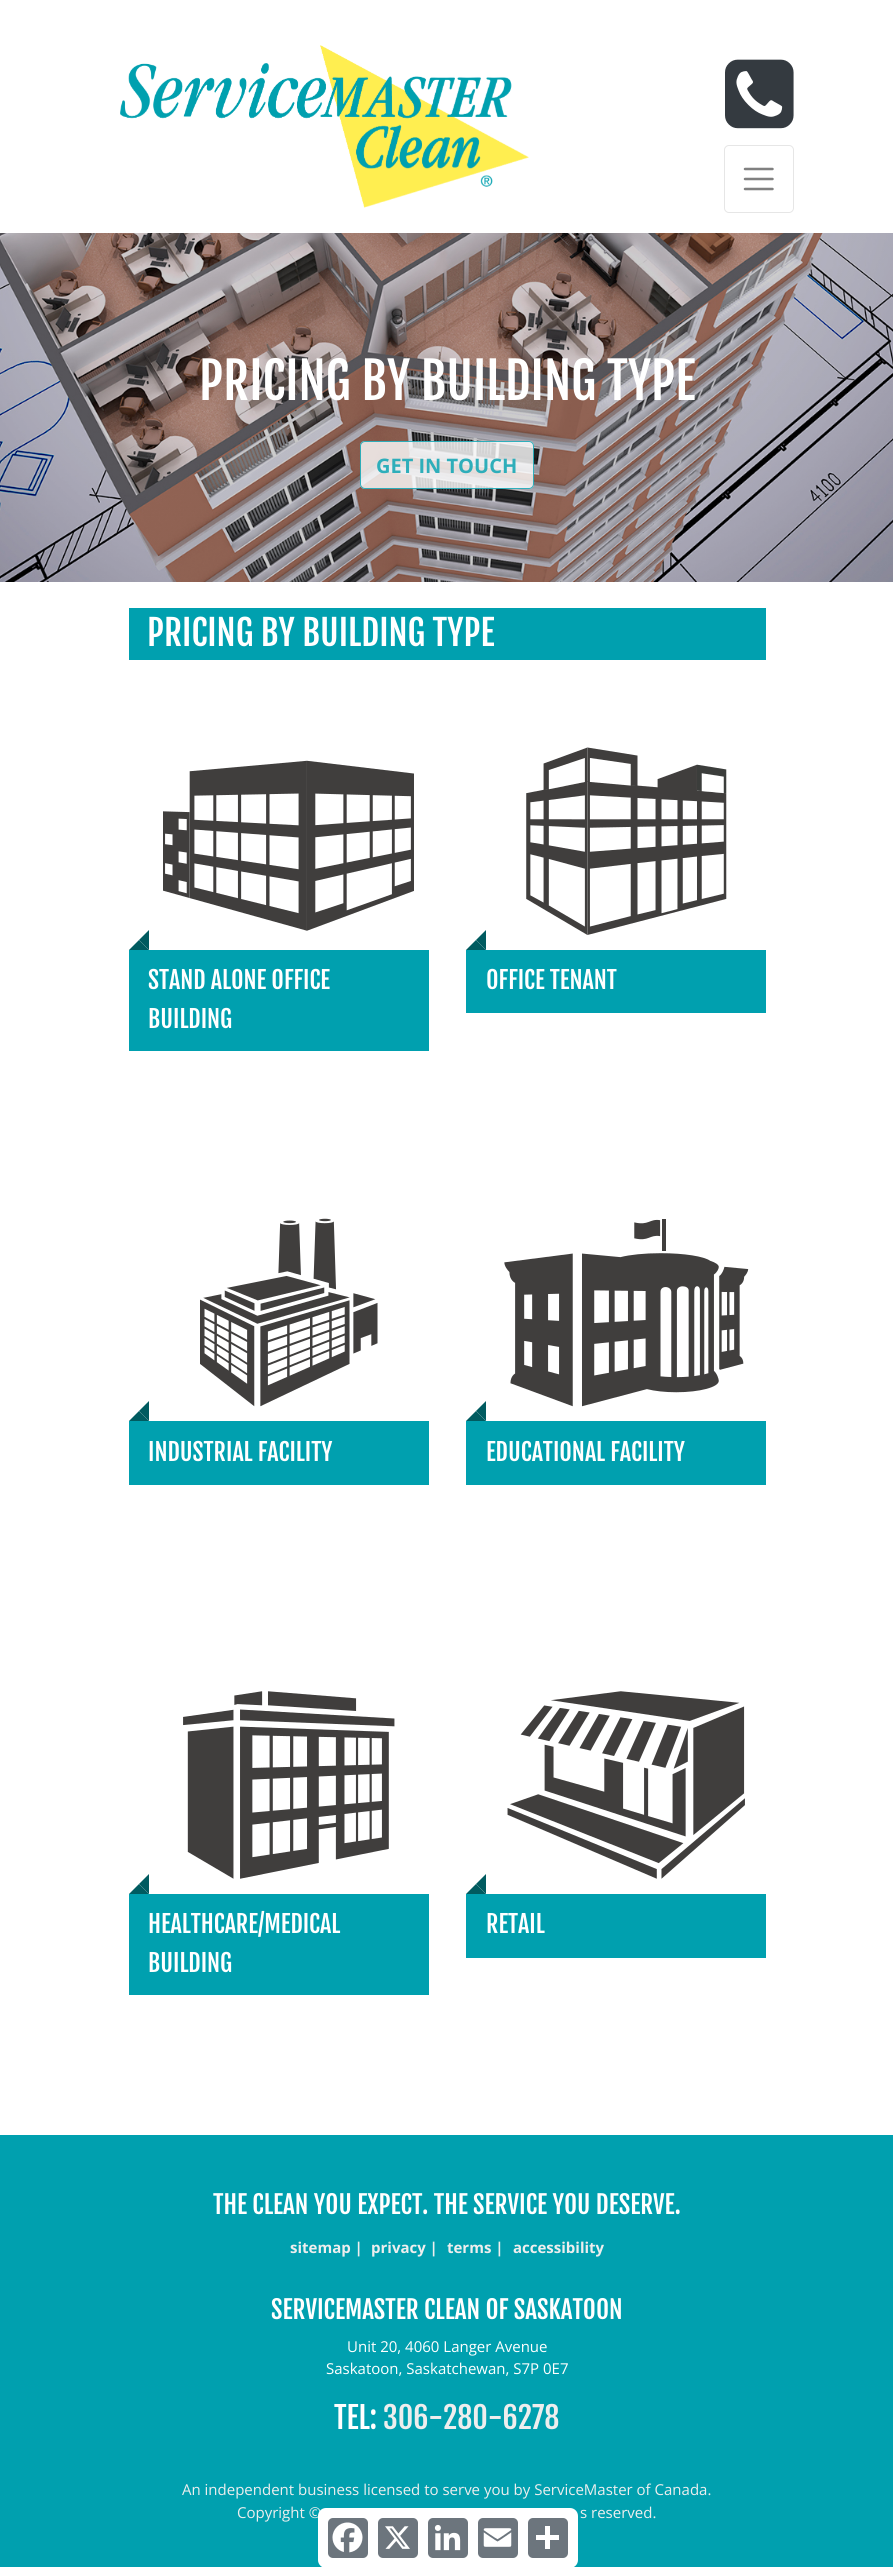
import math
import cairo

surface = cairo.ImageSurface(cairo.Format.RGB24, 893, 2567)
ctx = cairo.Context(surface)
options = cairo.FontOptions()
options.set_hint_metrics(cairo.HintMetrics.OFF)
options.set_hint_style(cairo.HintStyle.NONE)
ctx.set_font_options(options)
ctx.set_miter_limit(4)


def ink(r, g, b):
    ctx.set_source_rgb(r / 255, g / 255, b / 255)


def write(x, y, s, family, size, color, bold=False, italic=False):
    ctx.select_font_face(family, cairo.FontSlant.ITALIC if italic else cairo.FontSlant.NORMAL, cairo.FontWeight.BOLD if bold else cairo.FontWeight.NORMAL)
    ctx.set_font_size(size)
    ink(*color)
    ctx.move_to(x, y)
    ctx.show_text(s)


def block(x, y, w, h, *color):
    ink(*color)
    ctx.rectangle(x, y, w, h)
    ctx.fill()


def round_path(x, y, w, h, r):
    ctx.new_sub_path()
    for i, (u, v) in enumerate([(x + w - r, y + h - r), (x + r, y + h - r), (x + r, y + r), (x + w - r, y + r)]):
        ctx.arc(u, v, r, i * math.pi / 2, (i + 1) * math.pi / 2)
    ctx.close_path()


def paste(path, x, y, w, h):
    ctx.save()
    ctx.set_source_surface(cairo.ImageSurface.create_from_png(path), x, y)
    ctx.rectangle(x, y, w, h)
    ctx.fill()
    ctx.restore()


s1 = dict(family="Fjalla One", size=50, color=(255, 255, 255))
s2 = dict(family="Open Sans", size=20, color=(46, 174, 186), bold=True)
s3 = dict(family="Fjalla One", size=35, color=(255, 255, 255))
s4 = dict(family="Fjalla One", size=24, color=(255, 255, 255))
s5 = dict(family="Fjalla One", size=25, color=(255, 255, 255))
s6 = dict(family="Open Sans", size=15, color=(238, 238, 238), bold=True)
s7 = dict(family="Open Sans", size=15, color=(255, 255, 255))
s8 = dict(family="Fjalla One", size=30, color=(255, 255, 255))
s9 = dict(family="Fjalla One", size=30, color=(238, 238, 238))
s10 = dict(family="Open Sans", size=15, color=(238, 238, 238))

ink(255, 255, 255)
ctx.paint()
paste("pic1.png", 120, 45, 409, 163)
paste("pic2.png", 725, 59, 69, 70)
round_path(724.5, 145.5, 69, 67, 4.5)
ink(230, 230, 230)
ctx.set_line_width(1)
ctx.stroke()
ctx.new_path()
ctx.move_to(745, 169)
ctx.line_to(772.5, 169)
ctx.move_to(745, 179)
ctx.line_to(772.5, 179)
ctx.move_to(745, 189)
ctx.line_to(772.5, 189)
ink(128, 128, 128)
ctx.set_line_width(2.5)
ctx.set_line_cap(cairo.LineCap.ROUND)
ctx.stroke()
paste("pic3.png", 0, 233, 893, 349)
write(199, 400, "PRICING BY BUILDING TYPE", **s1)
ctx.set_source_rgba(1, 1, 1, 0.8)
round_path(360, 441, 174, 48, 5)
ctx.fill()
round_path(360.5, 441.5, 173, 47, 4.5)
ctx.set_source_rgba(0, 0.627, 0.686, 0.8)
ctx.set_line_width(1)
ctx.set_line_cap(cairo.LineCap.BUTT)
ctx.stroke()
write(376, 473, "GET IN TOUCH", **s2)
block(129, 608, 637, 52, 0, 160, 175)
write(147, 646, "PRICING BY BUILDING TYPE", **s3)
paste("pic4.png", 163, 760, 251, 171)
block(129, 950, 300, 101, 0, 160, 175)
ink(0, 91, 96)
ctx.new_path()
ctx.move_to(149, 930)
ctx.line_to(149, 950)
ctx.line_to(139, 940)
ctx.close_path()
ctx.fill()
ctx.new_path()
ctx.move_to(149, 950)
ctx.line_to(129, 950)
ctx.line_to(139, 940)
ctx.close_path()
ctx.fill()
write(148, 989, "STAND ALONE OFFICE", **s4)
write(148, 1028, "BUILDING", **s4)
paste("pic5.png", 526, 747, 201, 188)
block(466, 950, 300, 63, 0, 160, 175)
ink(0, 91, 96)
ctx.new_path()
ctx.move_to(486, 930)
ctx.line_to(486, 950)
ctx.line_to(476, 940)
ctx.close_path()
ctx.fill()
ctx.new_path()
ctx.move_to(486, 950)
ctx.line_to(466, 950)
ctx.line_to(476, 940)
ctx.close_path()
ctx.fill()
write(486, 989, "OFFICE TENANT", **s4)
paste("pic6.png", 200, 1218, 178, 189)
block(129, 1421, 300, 64, 0, 160, 175)
ink(0, 91, 96)
ctx.new_path()
ctx.move_to(149, 1401)
ctx.line_to(149, 1421)
ctx.line_to(139, 1411)
ctx.close_path()
ctx.fill()
ctx.new_path()
ctx.move_to(149, 1421)
ctx.line_to(129, 1421)
ctx.line_to(139, 1411)
ctx.close_path()
ctx.fill()
write(148, 1461, "INDUSTRIAL FACILITY", **s4)
paste("pic7.png", 504, 1219, 245, 188)
block(466, 1421, 300, 64, 0, 160, 175)
ink(0, 91, 96)
ctx.new_path()
ctx.move_to(486, 1401)
ctx.line_to(486, 1421)
ctx.line_to(476, 1411)
ctx.close_path()
ctx.fill()
ctx.new_path()
ctx.move_to(486, 1421)
ctx.line_to(466, 1421)
ctx.line_to(476, 1411)
ctx.close_path()
ctx.fill()
write(486, 1461, "EDUCATIONAL FACILITY", **s4)
paste("pic8.png", 183, 1691, 212, 188)
block(129, 1894, 300, 101, 0, 160, 175)
ink(0, 91, 96)
ctx.new_path()
ctx.move_to(149, 1874)
ctx.line_to(149, 1894)
ctx.line_to(139, 1884)
ctx.close_path()
ctx.fill()
ctx.new_path()
ctx.move_to(149, 1894)
ctx.line_to(129, 1894)
ctx.line_to(139, 1884)
ctx.close_path()
ctx.fill()
write(148, 1933, "HEALTHCARE/MEDICAL", **s4)
write(148, 1972, "BUILDING", **s4)
paste("pic9.png", 507, 1691, 238, 188)
block(466, 1894, 300, 64, 0, 160, 175)
ink(0, 91, 96)
ctx.new_path()
ctx.move_to(486, 1874)
ctx.line_to(486, 1894)
ctx.line_to(476, 1884)
ctx.close_path()
ctx.fill()
ctx.new_path()
ctx.move_to(486, 1894)
ctx.line_to(466, 1894)
ctx.line_to(476, 1884)
ctx.close_path()
ctx.fill()
write(486, 1933, "RETAIL", **s4)
block(0, 2135, 893, 432, 0, 160, 175)
write(213, 2214, "THE CLEAN YOU EXPECT. THE SERVICE YOU DESERVE.", **s5)
write(290, 2253, "sitemap |", **s6)
write(371, 2253, "privacy |", **s6)
write(447, 2253, "terms |", **s6)
write(513, 2253, "accessibility", **s6)
write(271, 2319, "SERVICEMASTER CLEAN OF SASKATOON", **s5)
write(347, 2352, "Unit 20, 4060 Langer Avenue", **s7)
write(326, 2374, "Saskatoon, Saskatchewan, S7P 0E7", **s7)
write(334, 2429, "TEL:", **s8)
write(383, 2429, "306-280-6278", **s9)
write(182, 2495, "An independent business licensed to serve you by ServiceMaster of Canada.", **s10)
write(237, 2518, "Copyright ©", **s10)
write(580, 2518, "s reserved.", **s10)
ink(255, 255, 255)
round_path(318, 2508, 260, 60, 8)
ctx.fill()
ink(108, 117, 125)
round_path(328, 2518, 40, 40, 5)
ctx.fill()
paste("pic10.png", 332, 2522, 31, 31)
round_path(378, 2518, 40, 40, 5)
ctx.fill()
paste("pic11.png", 385, 2526, 25, 23)
round_path(428, 2518, 40, 40, 5)
ctx.fill()
paste("pic12.png", 434, 2524, 27, 27)
round_path(478, 2518, 40, 40, 5)
ctx.fill()
paste("pic13.png", 483, 2528, 29, 19)
round_path(528, 2518, 40, 40, 5)
ctx.fill()
block(545, 2526, 5, 23, 255, 255, 255)
block(536, 2535, 23, 5, 255, 255, 255)
surface.write_to_png("screenshot.png")
